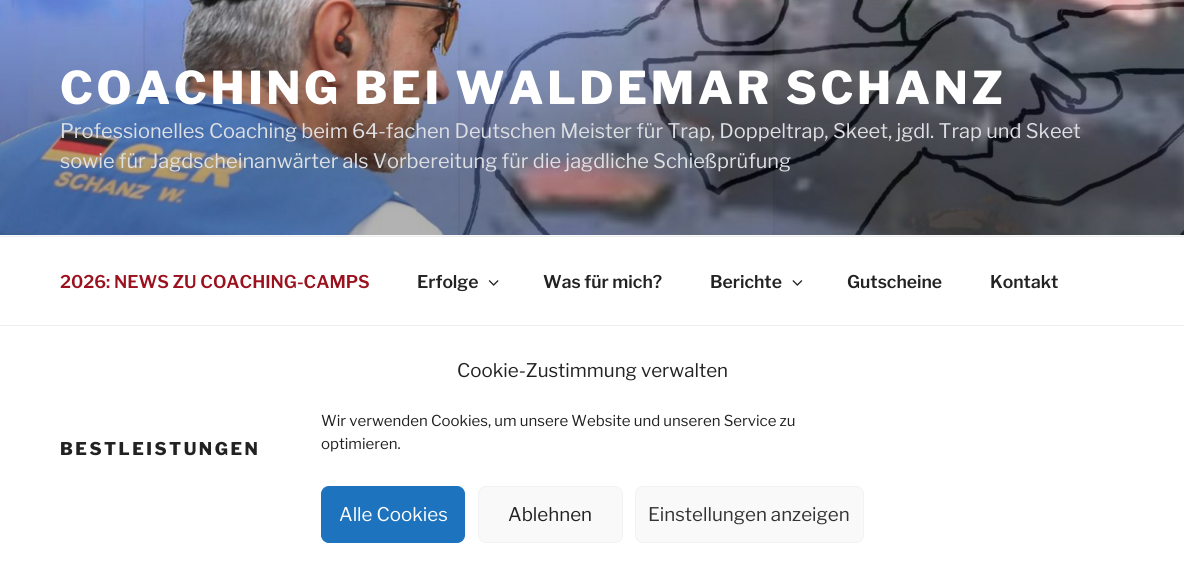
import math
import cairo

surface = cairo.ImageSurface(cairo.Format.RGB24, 1184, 573)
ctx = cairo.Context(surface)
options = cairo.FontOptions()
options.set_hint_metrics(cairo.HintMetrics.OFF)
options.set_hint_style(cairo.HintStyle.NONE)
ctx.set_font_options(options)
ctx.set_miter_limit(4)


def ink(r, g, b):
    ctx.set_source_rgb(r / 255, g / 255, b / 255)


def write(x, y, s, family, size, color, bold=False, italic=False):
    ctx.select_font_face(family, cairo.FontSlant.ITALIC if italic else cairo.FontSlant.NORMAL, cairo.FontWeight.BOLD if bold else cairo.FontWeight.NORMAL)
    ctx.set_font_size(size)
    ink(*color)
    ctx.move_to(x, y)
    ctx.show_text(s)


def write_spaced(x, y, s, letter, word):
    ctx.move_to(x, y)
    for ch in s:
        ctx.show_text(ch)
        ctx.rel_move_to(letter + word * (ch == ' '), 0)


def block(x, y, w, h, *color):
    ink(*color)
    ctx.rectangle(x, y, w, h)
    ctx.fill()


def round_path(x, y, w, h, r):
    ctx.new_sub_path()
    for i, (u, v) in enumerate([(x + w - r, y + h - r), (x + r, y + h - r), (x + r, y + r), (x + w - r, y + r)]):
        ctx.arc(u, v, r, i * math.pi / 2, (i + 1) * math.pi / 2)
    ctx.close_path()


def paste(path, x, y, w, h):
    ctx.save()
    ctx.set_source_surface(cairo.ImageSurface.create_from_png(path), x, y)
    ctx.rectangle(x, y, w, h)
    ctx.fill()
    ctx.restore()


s1 = dict(family="Libre Franklin", size=20, color=(221, 223, 227))
s2 = dict(family="Libre Franklin SemiBold", size=17.5, color=(155, 17, 30))
s3 = dict(family="Libre Franklin SemiBold", size=17.5, color=(34, 34, 34))
s4 = dict(family="Libre Franklin", size=18.75, color=(34, 34, 34))
s5 = dict(family="Libre Franklin", size=15, color=(34, 34, 34))
s6 = dict(family="Libre Franklin", size=18.75, color=(255, 255, 255))
s7 = dict(family="Libre Franklin", size=18.75, color=(51, 51, 51))

ink(255, 255, 255)
ctx.paint()
block(0, 235, 1184, 1, 250, 250, 250)
paste("pic1.png", 0, 0, 1184, 235)
ctx.select_font_face("Libre Franklin ExtraBold")
ctx.set_font_size(45)
ink(255, 255, 255)
write_spaced(60, 104, "COACHING BEI WALDEMAR SCHANZ", 3.6, 0)
write(60, 138, "Professionelles Coaching beim 64-fachen Deutschen Meister für Trap, Doppeltrap, Skeet, jgdl. Trap und Skeet", **s1)
write(60, 168, "sowie für Jagdscheinanwärter als Vorbereitung für die jagdliche Schießprüfung", **s1)
block(0, 236, 1184, 1, 238, 238, 238)
block(0, 325, 1184, 1, 238, 238, 238)
write(60, 288, "2026: NEWS ZU COACHING-CAMPS", **s2)
write(417, 288, "Erfolge", **s3)
paste("pic2.png", 488, 280, 11, 6)
write(543, 288, "Was für mich?", **s3)
write(710, 288, "Berichte", **s3)
paste("pic3.png", 792, 280, 11, 6)
write(847, 288, "Gutscheine", **s3)
write(990, 288, "Kontakt", **s3)
ctx.select_font_face("Libre Franklin ExtraBold")
write_spaced(60, 455, "BESTLEISTUNGEN", 2.5, 0)
write(457, 377, "Cookie-Zustimmung verwalten", **s4)
write(321, 426, "Wir verwenden Cookies, um unsere Website und unseren Service zu", **s5)
write(321, 449, "optimieren.", **s5)
ink(30, 115, 190)
round_path(321.5, 486.5, 143, 56, 7.5)
ctx.fill_preserve()
ctx.set_line_width(1)
ctx.stroke()
write(339, 521, "Alle Cookies", **s6)
ink(249, 249, 249)
round_path(478.5, 486.5, 144, 56, 7.5)
ctx.fill_preserve()
ink(242, 242, 242)
ctx.stroke()
write(508, 521, "Ablehnen", **s4)
ink(249, 249, 249)
round_path(635.5, 486.5, 228, 56, 7.5)
ctx.fill_preserve()
ink(242, 242, 242)
ctx.stroke()
write(648, 521, "Einstellungen anzeigen", **s7)
surface.write_to_png("screenshot.png")
